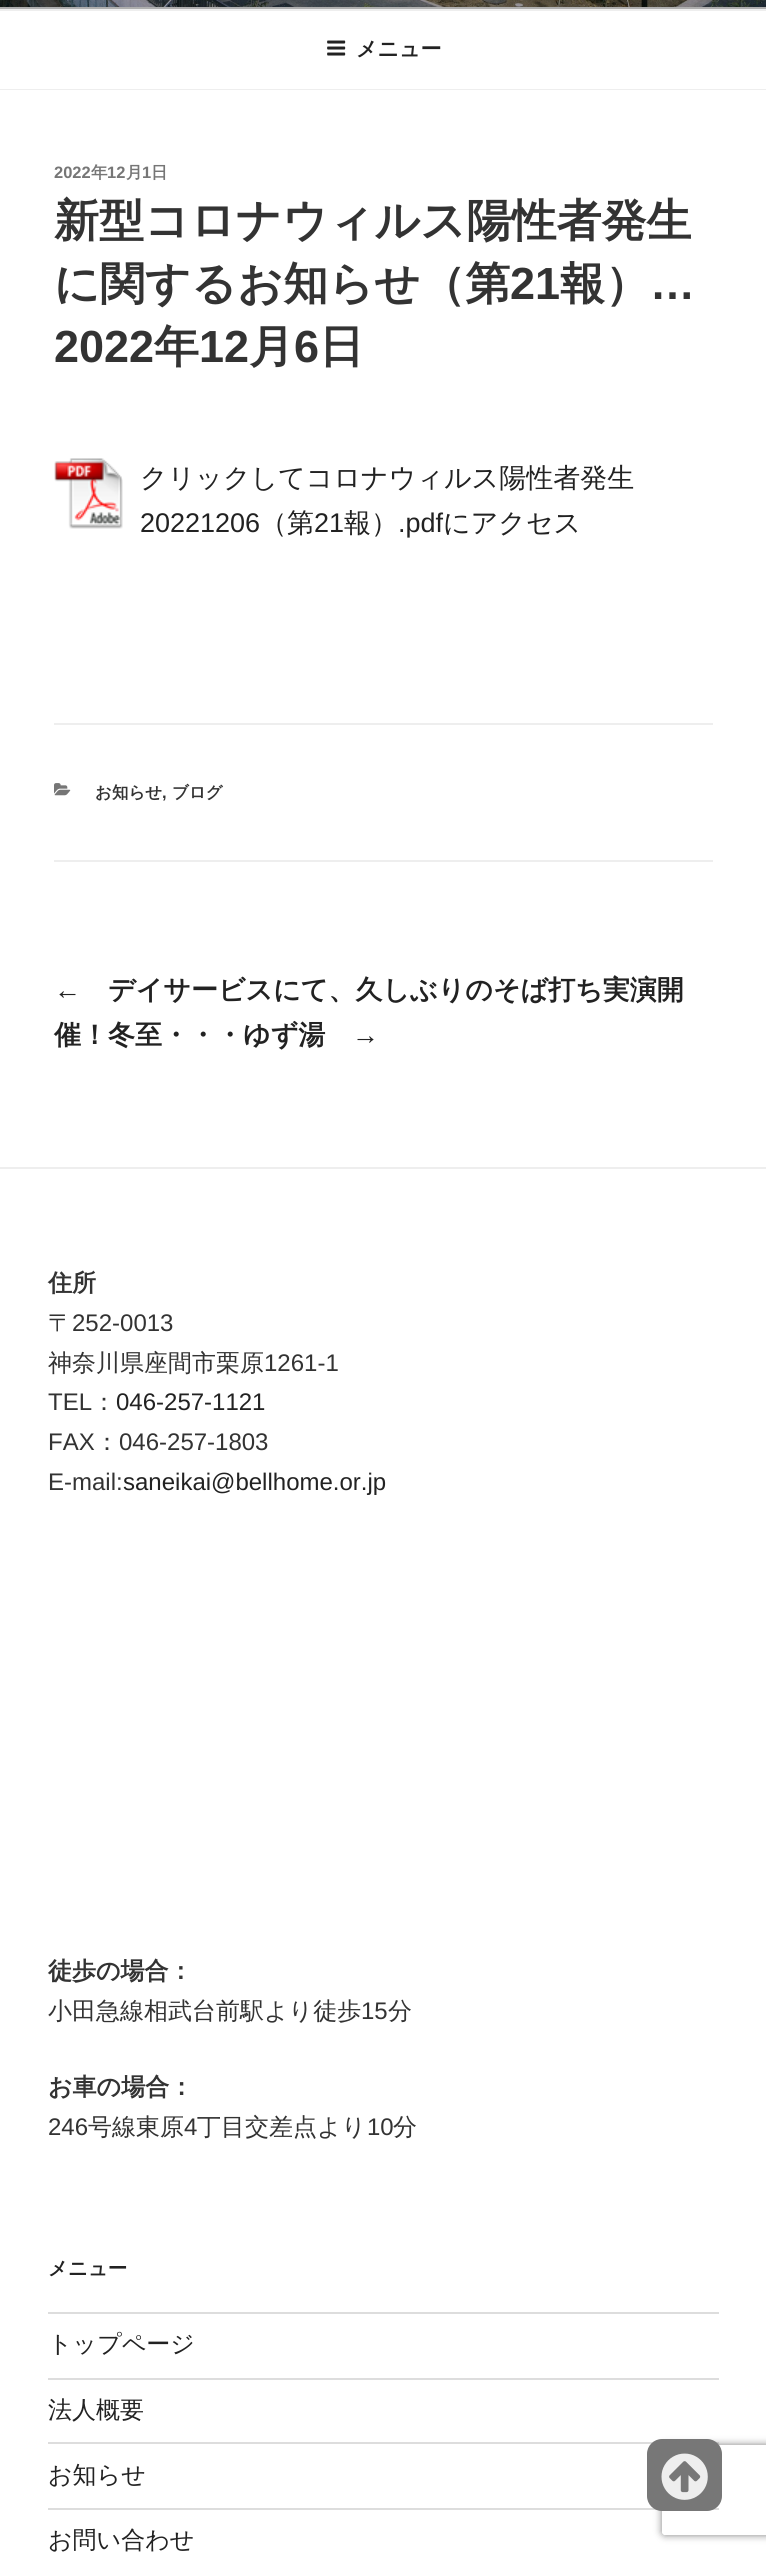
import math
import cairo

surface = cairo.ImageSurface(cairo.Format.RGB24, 766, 2555)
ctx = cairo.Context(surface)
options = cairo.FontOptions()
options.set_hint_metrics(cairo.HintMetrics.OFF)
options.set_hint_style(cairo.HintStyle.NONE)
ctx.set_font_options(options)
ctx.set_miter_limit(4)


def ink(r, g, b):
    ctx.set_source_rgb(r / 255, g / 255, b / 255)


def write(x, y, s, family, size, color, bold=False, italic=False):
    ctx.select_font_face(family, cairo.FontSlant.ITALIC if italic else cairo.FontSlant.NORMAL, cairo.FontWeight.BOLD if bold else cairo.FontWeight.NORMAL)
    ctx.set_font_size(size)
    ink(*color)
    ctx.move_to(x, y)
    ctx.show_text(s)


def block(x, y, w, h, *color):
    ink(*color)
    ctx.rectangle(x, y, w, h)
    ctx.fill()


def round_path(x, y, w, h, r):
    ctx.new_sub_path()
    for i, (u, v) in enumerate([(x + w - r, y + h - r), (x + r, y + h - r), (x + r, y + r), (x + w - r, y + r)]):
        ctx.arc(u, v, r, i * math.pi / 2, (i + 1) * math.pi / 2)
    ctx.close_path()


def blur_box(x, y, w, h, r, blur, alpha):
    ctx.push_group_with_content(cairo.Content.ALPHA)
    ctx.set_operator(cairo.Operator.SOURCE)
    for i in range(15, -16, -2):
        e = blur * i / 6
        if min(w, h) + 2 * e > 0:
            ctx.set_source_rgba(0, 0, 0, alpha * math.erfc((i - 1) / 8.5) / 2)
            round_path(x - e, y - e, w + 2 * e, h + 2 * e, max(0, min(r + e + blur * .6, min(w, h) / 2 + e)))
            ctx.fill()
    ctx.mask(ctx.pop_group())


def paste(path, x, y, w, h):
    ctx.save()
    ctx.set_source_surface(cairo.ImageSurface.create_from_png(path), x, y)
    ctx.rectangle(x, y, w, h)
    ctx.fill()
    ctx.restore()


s1 = dict(family="WenQuanYi Zen Hei", size=21, color=(34, 34, 34), bold=True)
s2 = dict(family="Liberation Sans", size=16.5, color=(118, 118, 118), bold=True)
s3 = dict(family="WenQuanYi Zen Hei", size=16.5, color=(118, 118, 118), bold=True)
s4 = dict(family="WenQuanYi Zen Hei", size=45, color=(51, 51, 51), bold=True)
s5 = dict(family="Liberation Sans", size=45, color=(51, 51, 51), bold=True)
s6 = dict(family="WenQuanYi Zen Hei Medium", size=27, color=(34, 34, 34))
s7 = dict(family="Liberation Sans", size=27, color=(34, 34, 34))
s8 = dict(family="WenQuanYi Zen Hei", size=16.5, color=(51, 51, 51), bold=True)
s9 = dict(family="Liberation Sans", size=16.5, color=(51, 51, 51), bold=True)
s10 = dict(family="Liberation Sans", size=27, color=(34, 34, 34), bold=True)
s11 = dict(family="WenQuanYi Zen Hei", size=27, color=(34, 34, 34), bold=True)
s12 = dict(family="WenQuanYi Zen Hei", size=24, color=(51, 51, 51), bold=True)
s13 = dict(family="WenQuanYi Zen Hei Medium", size=24, color=(51, 51, 51))
s14 = dict(family="Liberation Sans", size=24, color=(51, 51, 51))
s15 = dict(family="Liberation Sans", size=24, color=(34, 34, 34))
s16 = dict(family="WenQuanYi Zen Hei", size=19.5, color=(34, 34, 34), bold=True)
s17 = dict(family="WenQuanYi Zen Hei Medium", size=24, color=(34, 34, 34))

ink(250, 250, 250)
ctx.paint()
paste("pic1.png", 0, 0, 766, 7)
gradient = cairo.LinearGradient(383, -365, 383, 9)
gradient.add_color_stop_rgba(0, 0, 0, 0, 0)
gradient.add_color_stop_rgba(0.75, 0, 0, 0, 0.3)
gradient.add_color_stop_rgba(1, 0, 0, 0, 0.3)
ctx.set_source(gradient)
ctx.rectangle(0, 0, 766, 9)
ctx.fill()
block(0, 11, 766, 78, 255, 255, 255)
block(0, 9, 766, 2, 238, 238, 238)
block(0, 89, 766, 1, 238, 238, 238)
paste("pic2.png", 327, 40, 19, 16)
write(356, 56, "メニュー", **s1)
block(0, 90, 766, 2465, 255, 255, 255)
write(54, 178, "2022", **s2)
write(91, 178, "年", **s3)
write(107, 178, "12", **s2)
write(126, 178, "月", **s3)
write(142, 178, "1", **s2)
write(151, 178, "日", **s3)
write(54, 236, "新型コロナウィルス陽性者発生", **s4)
write(54, 299, "に関するお知らせ（第", **s4)
write(510, 299, "21", **s5)
write(560, 299, "報）", **s4)
write(650, 299, "…", **s5)
write(54, 362, "2022", **s5)
write(154, 362, "年", **s4)
write(199, 362, "12", **s5)
write(249, 362, "月", **s4)
write(294, 362, "6", **s5)
write(319, 362, "日", **s4)
paste("pic3.png", 54, 458, 69, 71)
write(140, 487, "クリックしてコロナウィルス陽性者発生", **s6)
write(140, 532, "20221206", **s7)
write(260, 532, "（第", **s6)
write(314, 532, "21", **s7)
write(344, 532, "報）", **s6)
write(398, 532, ".pdf", **s7)
write(443, 532, "にアクセス", **s6)
block(54, 723, 659, 2, 238, 238, 238)
block(54, 860, 659, 2, 238, 238, 238)
paste("pic4.png", 54, 783, 17, 13)
write(95, 798, "お知らせ", **s8)
write(162, 798, ",", **s9)
write(172, 798, "ブログ", **s8)
write(54, 999, "←", **s10)
write(108, 999, "デイサービスにて、久しぶりのそば打ち実演開", **s11)
write(54, 1044, "催！冬至・・・ゆず湯", **s11)
write(352, 1044, "→", **s10)
block(0, 1167, 766, 2, 238, 238, 238)
write(48, 1291, "住所", **s12)
write(48, 1331, "〒", **s13)
write(72, 1331, "252-0013", **s14)
write(48, 1371, "神奈川県座間市栗原", **s13)
write(264, 1371, "1261-1", **s14)
write(48, 1410, "TEL", **s14)
write(92, 1410, "：", **s13)
write(116, 1410, "046-257-1121", **s15)
write(48, 1450, "FAX", **s14)
write(95, 1450, "：", **s13)
write(119, 1450, "046-257-1803", **s14)
write(48, 1490, "E-mail:", **s14)
write(123, 1490, "saneikai@bellhome.or.jp", **s15)
write(48, 1979, "徒歩の場合：", **s12)
write(48, 2019, "小田急線相武台前駅より徒歩", **s13)
write(361, 2019, "15", **s14)
write(388, 2019, "分", **s13)
write(48, 2095, "お車の場合：", **s12)
write(48, 2135, "246", **s14)
write(88, 2135, "号線東原", **s13)
write(184, 2135, "4", **s14)
write(197, 2135, "丁目交差点より", **s13)
write(367, 2135, "10", **s14)
write(393, 2135, "分", **s13)
write(48, 2275, "メニュー", **s16)
block(48, 2312, 671, 2, 221, 221, 221)
block(48, 2378, 671, 2, 221, 221, 221)
write(48, 2352, "トップページ", **s17)
block(48, 2442, 671, 2, 221, 221, 221)
write(48, 2418, "法人概要", **s17)
block(48, 2508, 671, 2, 221, 221, 221)
write(48, 2483, "お知らせ", **s17)
write(48, 2548, "お問い合わせ", **s17)
ctx.save()
ctx.set_fill_rule(cairo.FillRule.EVEN_ODD)
ctx.new_path()
ctx.move_to(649, 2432)
ctx.line_to(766, 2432)
ctx.line_to(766, 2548)
ctx.line_to(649, 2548)
ctx.close_path()
ctx.move_to(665, 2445)
ctx.line_to(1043, 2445)
ctx.curve_to(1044.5, 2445, 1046, 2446.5, 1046, 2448)
ctx.line_to(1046, 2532)
ctx.curve_to(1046, 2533.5, 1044.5, 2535, 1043, 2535)
ctx.line_to(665, 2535)
ctx.curve_to(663.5, 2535, 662, 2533.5, 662, 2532)
ctx.line_to(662, 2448)
ctx.curve_to(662, 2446.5, 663.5, 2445, 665, 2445)
ctx.close_path()
ctx.clip()
ink(128, 128, 128)
blur_box(662, 2445, 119, 90, 3, 4, 1)
ctx.restore()
ink(119, 119, 119)
round_path(647, 2439, 75, 72, 15)
ctx.fill()
paste("pic5.png", 661, 2453, 47, 47)
surface.write_to_png("screenshot.png")
